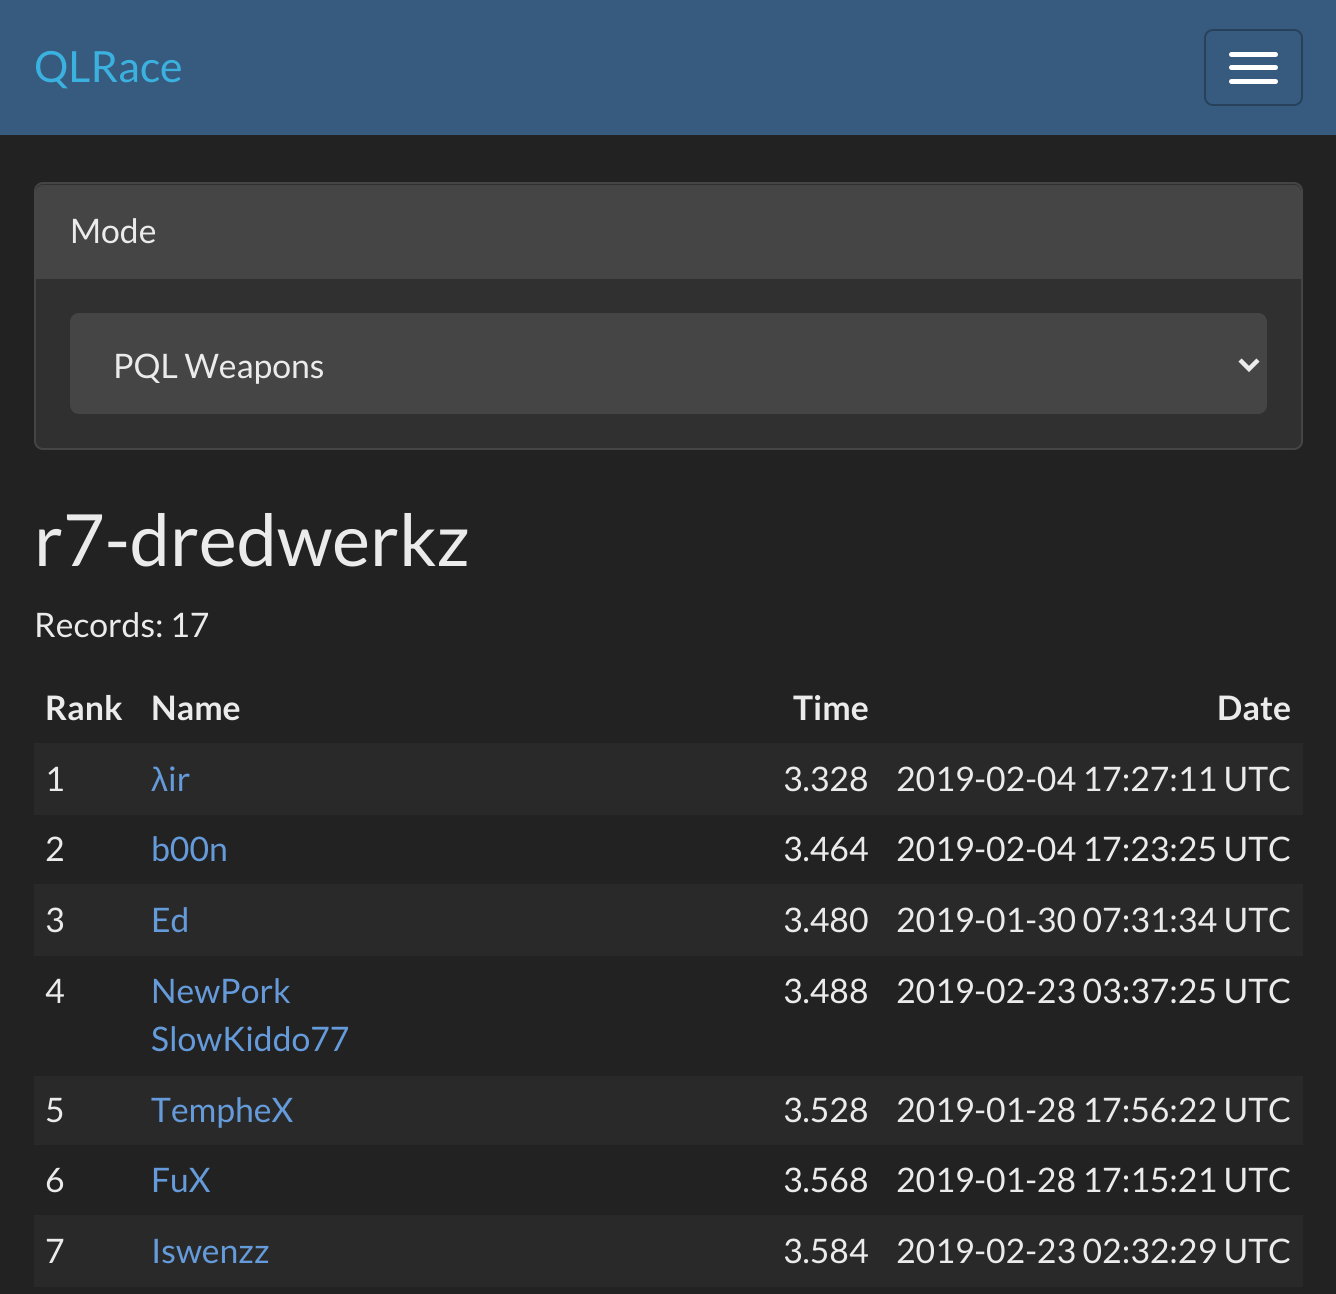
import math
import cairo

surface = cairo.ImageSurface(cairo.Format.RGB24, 1336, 1294)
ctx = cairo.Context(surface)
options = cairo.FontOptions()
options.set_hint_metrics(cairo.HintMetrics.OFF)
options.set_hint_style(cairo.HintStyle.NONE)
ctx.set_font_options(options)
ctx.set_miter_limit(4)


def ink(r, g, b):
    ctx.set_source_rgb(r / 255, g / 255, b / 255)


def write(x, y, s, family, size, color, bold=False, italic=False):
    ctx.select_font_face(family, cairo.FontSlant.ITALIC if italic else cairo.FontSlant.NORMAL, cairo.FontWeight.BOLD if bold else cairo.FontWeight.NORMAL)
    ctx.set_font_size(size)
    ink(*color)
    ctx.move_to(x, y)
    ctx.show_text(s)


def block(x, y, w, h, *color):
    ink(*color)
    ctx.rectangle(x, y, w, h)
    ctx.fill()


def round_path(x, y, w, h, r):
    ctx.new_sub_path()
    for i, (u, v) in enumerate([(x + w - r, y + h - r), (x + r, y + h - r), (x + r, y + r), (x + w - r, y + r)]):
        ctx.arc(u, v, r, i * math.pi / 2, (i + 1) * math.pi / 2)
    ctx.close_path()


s1 = dict(family="Lato", size=43, color=(59, 177, 223))
s2 = dict(family="Lato", size=33.75, color=(235, 235, 235))
s3 = dict(family="Lato", size=72, color=(235, 235, 235))
s4 = dict(family="Lato", size=33.75, color=(235, 235, 235), bold=True)
s5 = dict(family="Liberation Sans", size=33.75, color=(101, 155, 218))
s6 = dict(family="Lato", size=33.75, color=(101, 155, 218))

ink(34, 34, 34)
ctx.paint()
block(0, 0, 1336, 135, 55, 90, 127)
write(34, 82, "QLRace", **s1)
round_path(1205, 30, 97, 75, 8)
ink(40, 65, 91)
ctx.stroke()
ink(255, 255, 255)
round_path(1229, 52, 49, 5, 2.5)
ctx.fill()
round_path(1229, 65, 49, 5, 2.5)
ctx.fill()
round_path(1229, 79, 49, 5, 2.5)
ctx.fill()
ink(48, 48, 48)
round_path(35, 183, 1267, 266, 8)
ctx.fill_preserve()
ink(70, 69, 69)
ctx.stroke()
ctx.new_path()
ctx.move_to(43, 185)
ctx.line_to(1294, 185)
ctx.curve_to(1298, 185, 1301, 188, 1301, 192)
ctx.line_to(1301, 279)
ctx.line_to(36, 279)
ctx.line_to(36, 192)
ctx.curve_to(36, 188, 39, 185, 43, 185)
ctx.close_path()
ctx.fill()
write(70, 243, "Mode", **s2)
ink(70, 69, 69)
round_path(70, 313, 1197, 101, 9)
ctx.fill()
ctx.new_path()
ctx.move_to(1240, 360)
ctx.line_to(1249, 369)
ctx.line_to(1258, 360)
ink(235, 235, 235)
ctx.set_line_width(4.5)
ctx.stroke()
write(113, 378, "PQL Weapons", **s2)
write(34, 566, "r7-dredwerkz", **s3)
write(34, 637, "Records: 17", **s2)
write(45, 720, "Rank", **s4)
write(151, 720, "Name", **s4)
write(793, 720, "Time", **s4)
write(1217, 720, "Date", **s4)
block(34, 743, 1269, 72, 41, 41, 41)
write(45, 791, "1", **s2)
write(151, 791, "λ", **s5)
write(168, 791, "ir", **s6)
write(783, 791, "3.328", **s2)
write(896, 791, "2019-02-04 17:27:11 UTC", **s2)
write(45, 861, "2", **s2)
write(151, 861, "b00n", **s6)
write(783, 861, "3.464", **s2)
write(896, 861, "2019-02-04 17:23:25 UTC", **s2)
block(34, 884, 1269, 72, 41, 41, 41)
write(45, 932, "3", **s2)
write(151, 932, "Ed", **s6)
write(783, 932, "3.480", **s2)
write(896, 932, "2019-01-30 07:31:34 UTC", **s2)
write(45, 1003, "4", **s2)
write(151, 1003, "NewPork", **s6)
write(151, 1051, "SlowKiddo77", **s6)
write(783, 1003, "3.488", **s2)
write(896, 1003, "2019-02-23 03:37:25 UTC", **s2)
block(34, 1076, 1269, 69, 41, 41, 41)
write(45, 1122, "5", **s2)
write(151, 1122, "TempheX", **s6)
write(783, 1122, "3.528", **s2)
write(896, 1122, "2019-01-28 17:56:22 UTC", **s2)
write(45, 1192, "6", **s2)
write(151, 1192, "FuX", **s6)
write(783, 1192, "3.568", **s2)
write(896, 1192, "2019-01-28 17:15:21 UTC", **s2)
block(34, 1215, 1269, 72, 41, 41, 41)
write(45, 1263, "7", **s2)
write(151, 1263, "Iswenzz", **s6)
write(783, 1263, "3.584", **s2)
write(896, 1263, "2019-02-23 02:32:29 UTC", **s2)
surface.write_to_png("screenshot.png")
